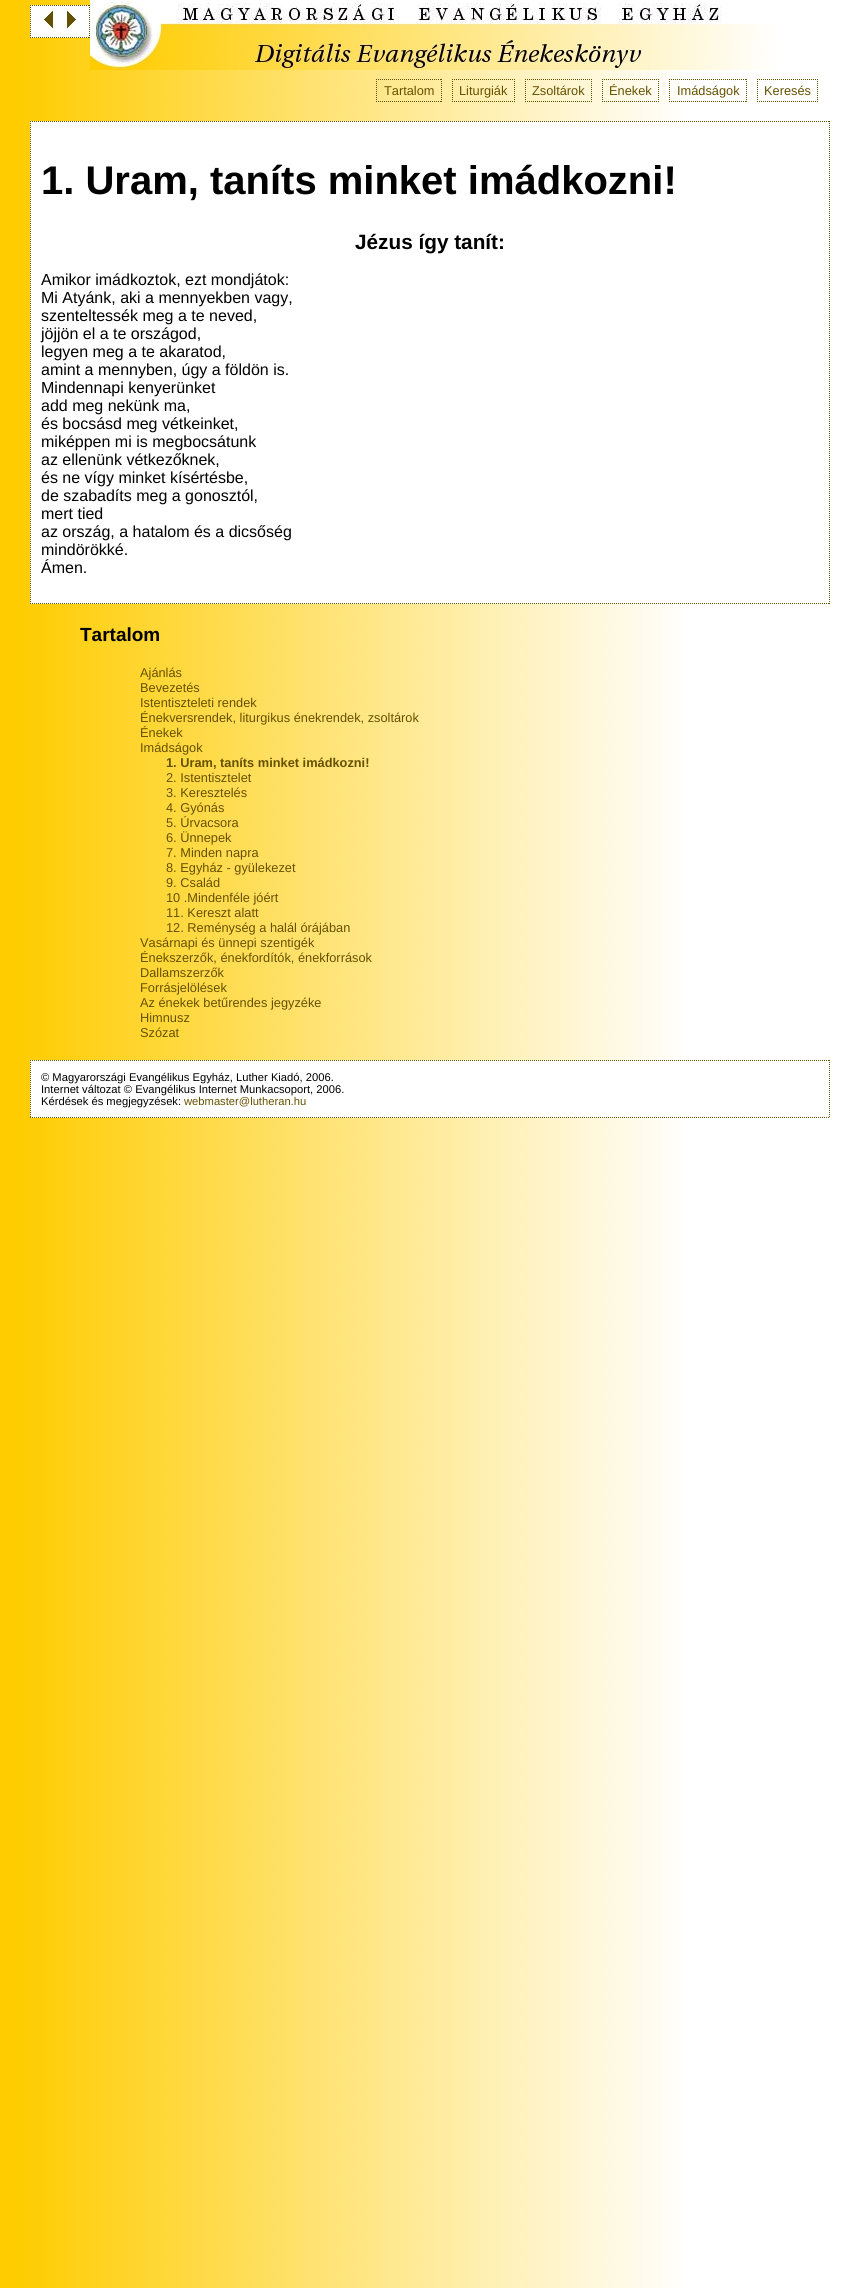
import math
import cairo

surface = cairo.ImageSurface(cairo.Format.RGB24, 860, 2288)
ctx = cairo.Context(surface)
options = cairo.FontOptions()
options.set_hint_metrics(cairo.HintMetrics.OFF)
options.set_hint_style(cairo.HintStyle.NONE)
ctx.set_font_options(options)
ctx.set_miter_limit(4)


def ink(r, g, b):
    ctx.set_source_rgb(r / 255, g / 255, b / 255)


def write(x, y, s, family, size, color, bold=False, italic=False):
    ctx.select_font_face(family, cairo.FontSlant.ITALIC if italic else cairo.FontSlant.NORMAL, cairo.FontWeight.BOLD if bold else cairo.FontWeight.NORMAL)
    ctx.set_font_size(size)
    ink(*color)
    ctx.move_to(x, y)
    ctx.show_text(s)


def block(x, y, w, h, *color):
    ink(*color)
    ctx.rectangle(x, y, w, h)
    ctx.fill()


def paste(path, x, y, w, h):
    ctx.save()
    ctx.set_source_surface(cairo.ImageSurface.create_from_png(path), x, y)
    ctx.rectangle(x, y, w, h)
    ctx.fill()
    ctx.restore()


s1 = dict(family="Liberation Sans", size=12.8, color=(102, 81, 0))
s2 = dict(family="Liberation Sans", size=40, color=(0, 0, 0), bold=True)
s3 = dict(family="Liberation Sans", size=20.75, color=(0, 0, 0), bold=True)
s4 = dict(family="Liberation Sans", size=16, color=(0, 0, 0))
s5 = dict(family="Liberation Sans", size=19, color=(0, 0, 0), bold=True)
s6 = dict(family="Liberation Sans", size=12.8, color=(102, 81, 0), bold=True)
s7 = dict(family="Liberation Sans", size=11.2, color=(0, 0, 0))
s8 = dict(family="Liberation Sans", size=11.2, color=(102, 81, 0))

ink(255, 255, 255)
ctx.paint()
paste("pic1.png", 0, 0, 682, 2288)
block(30, 5, 60, 33, 255, 255, 255)
ctx.new_path()
ctx.move_to(30, 5.5)
ctx.line_to(90, 5.5)
ctx.move_to(89.5, 5)
ctx.line_to(89.5, 38)
ctx.move_to(30, 37.5)
ctx.line_to(90, 37.5)
ctx.move_to(30.5, 5)
ctx.line_to(30.5, 38)
ink(102, 81, 0)
ctx.set_line_width(1)
ctx.set_dash([1, 1])
ctx.stroke()
paste("pic2.png", 43, 11, 10, 17)
paste("pic3.png", 67, 11, 10, 17)
paste("pic4.png", 90, 0, 686, 70)
write(384, 95, "Tartalom", **s1)
ctx.new_path()
ctx.move_to(376, 79.5)
ctx.line_to(442, 79.5)
ctx.stroke()
ctx.new_path()
ctx.move_to(441.5, 79)
ctx.line_to(441.5, 102)
ctx.stroke()
ctx.new_path()
ctx.move_to(376, 101.5)
ctx.line_to(442, 101.5)
ctx.stroke()
ctx.new_path()
ctx.move_to(376.5, 79)
ctx.line_to(376.5, 102)
ctx.stroke()
ctx.new_path()
ctx.move_to(452, 79.5)
ctx.line_to(515, 79.5)
ctx.move_to(514.5, 79)
ctx.line_to(514.5, 102)
ctx.move_to(452, 101.5)
ctx.line_to(515, 101.5)
ctx.move_to(452.5, 79)
ctx.line_to(452.5, 102)
ctx.stroke()
write(459, 95, "Liturgiák", **s1)
write(532, 95, "Zsoltárok", **s1)
ctx.new_path()
ctx.move_to(525, 79.5)
ctx.line_to(592, 79.5)
ctx.stroke()
ctx.new_path()
ctx.move_to(591.5, 79)
ctx.line_to(591.5, 102)
ctx.stroke()
ctx.new_path()
ctx.move_to(525, 101.5)
ctx.line_to(592, 101.5)
ctx.stroke()
ctx.new_path()
ctx.move_to(525.5, 79)
ctx.line_to(525.5, 102)
ctx.stroke()
ctx.new_path()
ctx.move_to(602, 79.5)
ctx.line_to(659, 79.5)
ctx.move_to(658.5, 79)
ctx.line_to(658.5, 102)
ctx.move_to(602, 101.5)
ctx.line_to(659, 101.5)
ctx.move_to(602.5, 79)
ctx.line_to(602.5, 102)
ctx.stroke()
write(609, 95, "Énekek", **s1)
write(677, 95, "Imádságok", **s1)
ctx.new_path()
ctx.move_to(669, 79.5)
ctx.line_to(747, 79.5)
ctx.stroke()
ctx.new_path()
ctx.move_to(746.5, 79)
ctx.line_to(746.5, 102)
ctx.stroke()
ctx.new_path()
ctx.move_to(669, 101.5)
ctx.line_to(747, 101.5)
ctx.stroke()
ctx.new_path()
ctx.move_to(669.5, 79)
ctx.line_to(669.5, 102)
ctx.stroke()
ctx.new_path()
ctx.move_to(757, 79.5)
ctx.line_to(818, 79.5)
ctx.move_to(817.5, 79)
ctx.line_to(817.5, 102)
ctx.move_to(757, 101.5)
ctx.line_to(818, 101.5)
ctx.move_to(757.5, 79)
ctx.line_to(757.5, 102)
ctx.stroke()
write(764, 95, "Keresés", **s1)
block(30, 121, 652, 483, 255, 255, 255)
ctx.new_path()
ctx.move_to(30, 121.5)
ctx.line_to(830, 121.5)
ink(102, 81, 0)
ctx.stroke()
ctx.new_path()
ctx.move_to(829.5, 121)
ctx.line_to(829.5, 604)
ctx.stroke()
ctx.new_path()
ctx.move_to(30, 603.5)
ctx.line_to(830, 603.5)
ctx.stroke()
ctx.new_path()
ctx.move_to(30.5, 121)
ctx.line_to(30.5, 604)
ctx.stroke()
write(41, 194, "1. Uram, taníts minket imádkozni!", **s2)
write(355, 249, "Jézus így tanít:", **s3)
write(41, 285, "Amikor imádkoztok, ezt mondjátok:", **s4)
write(41, 303, "Mi Atyánk, aki a mennyekben vagy,", **s4)
write(41, 321, "szenteltessék meg a te neved,", **s4)
write(41, 339, "jöjjön el a te országod,", **s4)
write(41, 357, "legyen meg a te akaratod,", **s4)
write(41, 375, "amint a mennyben, úgy a földön is.", **s4)
write(41, 393, "Mindennapi kenyerünket", **s4)
write(41, 411, "add meg nekünk ma,", **s4)
write(41, 429, "és bocsásd meg vétkeinket,", **s4)
write(41, 447, "miképpen mi is megbocsátunk", **s4)
write(41, 465, "az ellenünk vétkezőknek,", **s4)
write(41, 483, "és ne vígy minket kísértésbe,", **s4)
write(41, 501, "de szabadíts meg a gonosztól,", **s4)
write(41, 519, "mert tied", **s4)
write(41, 537, "az ország, a hatalom és a dicsőség", **s4)
write(41, 555, "mindörökké.", **s4)
write(41, 573, "Ámen.", **s4)
write(80, 641, "Tartalom", **s5)
write(140, 677, "Ajánlás", **s1)
write(140, 692, "Bevezetés", **s1)
write(140, 707, "Istentiszteleti rendek", **s1)
write(140, 722, "Énekversrendek, liturgikus énekrendek, zsoltárok", **s1)
write(140, 737, "Énekek", **s1)
write(140, 752, "Imádságok", **s1)
write(166, 767, "1. Uram, taníts minket imádkozni!", **s6)
write(166, 782, "2. Istentisztelet", **s1)
write(166, 797, "3. Keresztelés", **s1)
write(166, 812, "4. Gyónás", **s1)
write(166, 827, "5. Úrvacsora", **s1)
write(166, 842, "6. Ünnepek", **s1)
write(166, 857, "7. Minden napra", **s1)
write(166, 872, "8. Egyház - gyülekezet", **s1)
write(166, 887, "9. Család", **s1)
write(166, 902, "10 .Mindenféle jóért", **s1)
write(166, 917, "11. Kereszt alatt", **s1)
write(166, 932, "12. Reménység a halál órájában", **s1)
write(140, 947, "Vasárnapi és ünnepi szentigék", **s1)
write(140, 962, "Énekszerzők, énekfordítók, énekforrások", **s1)
write(140, 977, "Dallamszerzők", **s1)
write(140, 992, "Forrásjelölések", **s1)
write(140, 1007, "Az énekek betűrendes jegyzéke", **s1)
write(140, 1022, "Himnusz", **s1)
write(140, 1037, "Szózat", **s1)
block(30, 1060, 652, 58, 255, 255, 255)
ctx.new_path()
ctx.move_to(30, 1060.5)
ctx.line_to(830, 1060.5)
ink(102, 81, 0)
ctx.stroke()
ctx.new_path()
ctx.move_to(829.5, 1060)
ctx.line_to(829.5, 1118)
ctx.stroke()
ctx.new_path()
ctx.move_to(30, 1117.5)
ctx.line_to(830, 1117.5)
ctx.stroke()
ctx.new_path()
ctx.move_to(30.5, 1060)
ctx.line_to(30.5, 1118)
ctx.stroke()
write(41, 1081, "© Magyarországi Evangélikus Egyház, Luther Kiadó, 2006.", **s7)
write(41, 1093, "Internet változat © Evangélikus Internet Munkacsoport, 2006.", **s7)
write(41, 1105, "Kérdések és megjegyzések:", **s7)
write(184, 1105, "webmaster@lutheran.hu", **s8)
surface.write_to_png("screenshot.png")
